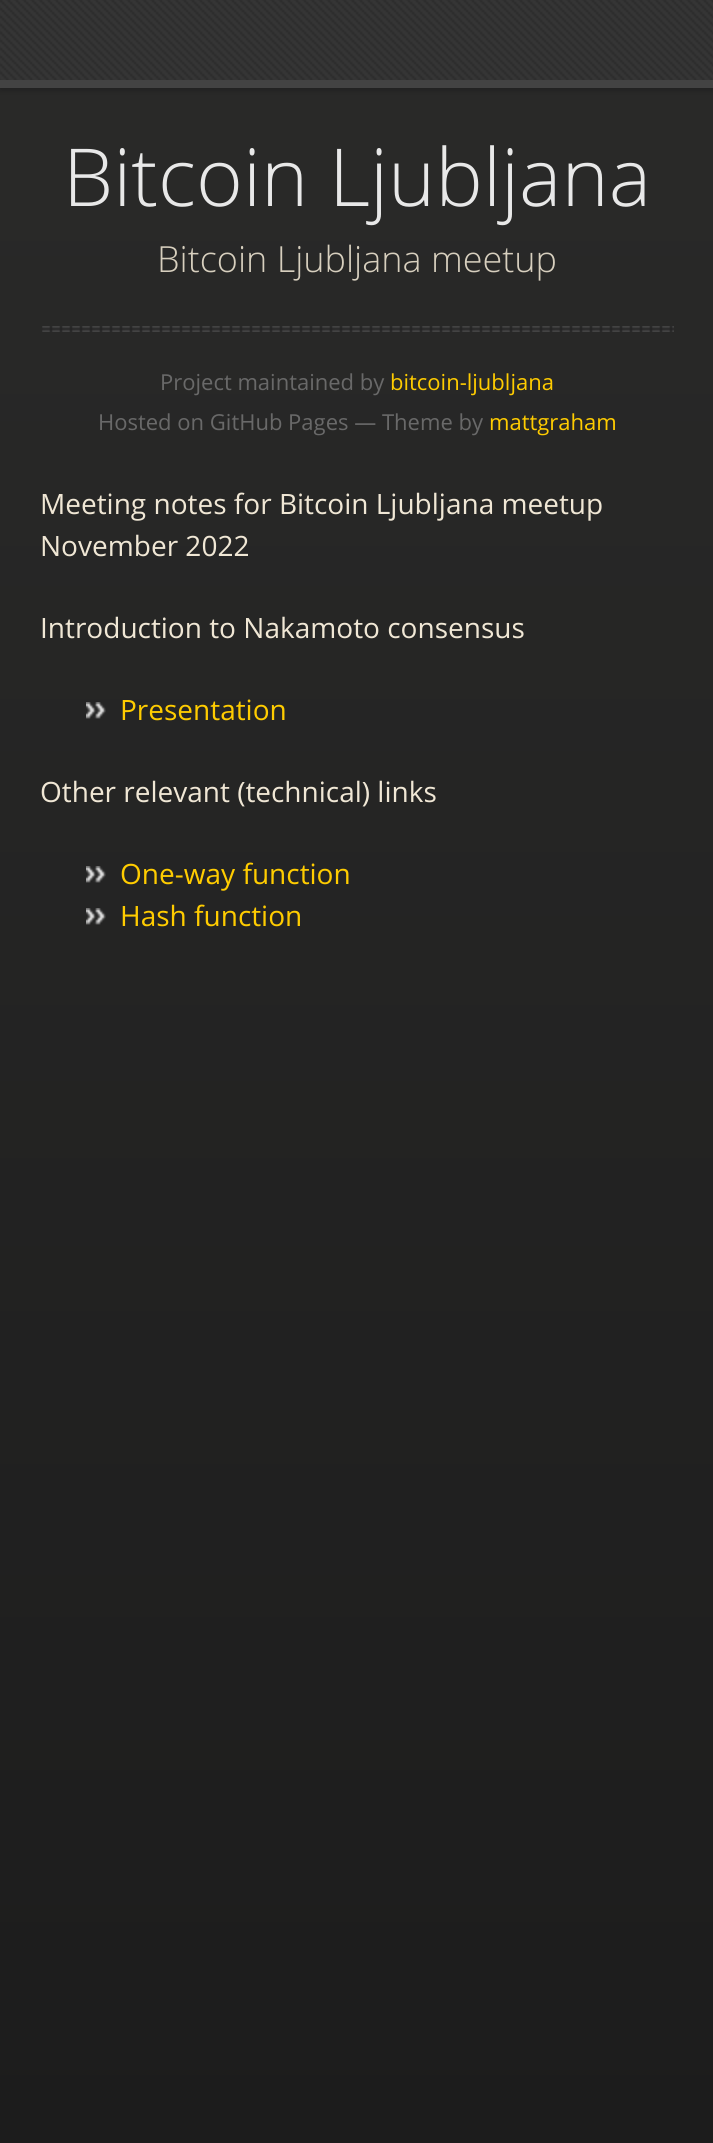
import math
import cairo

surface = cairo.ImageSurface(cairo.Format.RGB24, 713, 2143)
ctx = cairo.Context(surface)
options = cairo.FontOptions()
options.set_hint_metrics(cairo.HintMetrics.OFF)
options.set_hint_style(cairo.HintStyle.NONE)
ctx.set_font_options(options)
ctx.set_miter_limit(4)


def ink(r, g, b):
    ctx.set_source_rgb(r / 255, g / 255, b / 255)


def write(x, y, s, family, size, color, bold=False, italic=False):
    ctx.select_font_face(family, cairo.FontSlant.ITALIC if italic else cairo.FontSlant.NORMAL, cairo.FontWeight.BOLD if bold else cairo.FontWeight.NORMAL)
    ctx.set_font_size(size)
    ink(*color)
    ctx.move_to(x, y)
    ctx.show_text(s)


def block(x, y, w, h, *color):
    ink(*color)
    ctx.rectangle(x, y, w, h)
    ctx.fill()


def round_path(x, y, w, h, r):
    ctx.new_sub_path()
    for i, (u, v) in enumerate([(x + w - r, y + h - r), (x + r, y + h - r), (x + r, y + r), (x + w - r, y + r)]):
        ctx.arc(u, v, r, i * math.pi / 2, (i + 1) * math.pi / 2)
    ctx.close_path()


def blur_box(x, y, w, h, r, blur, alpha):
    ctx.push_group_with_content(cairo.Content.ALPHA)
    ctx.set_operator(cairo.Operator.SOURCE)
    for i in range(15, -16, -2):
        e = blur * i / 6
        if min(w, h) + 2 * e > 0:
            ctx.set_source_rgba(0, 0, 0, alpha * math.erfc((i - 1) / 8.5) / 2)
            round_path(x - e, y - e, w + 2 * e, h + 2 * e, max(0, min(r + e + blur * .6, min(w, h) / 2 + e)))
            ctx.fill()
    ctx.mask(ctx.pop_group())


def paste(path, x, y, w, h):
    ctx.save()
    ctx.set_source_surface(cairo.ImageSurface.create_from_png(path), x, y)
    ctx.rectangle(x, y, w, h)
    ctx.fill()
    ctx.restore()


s1 = dict(family="Open Sans Light", size=80, color=(232, 232, 232))
s2 = dict(family="Open Sans Light", size=36, color=(215, 207, 190))
s3 = dict(family="Open Sans", size=22, color=(105, 105, 105))
s4 = dict(family="Open Sans", size=22, color=(255, 204, 0))
s5 = dict(family="Open Sans", size=28, color=(240, 231, 213))
s6 = dict(family="Open Sans", size=28, color=(255, 204, 0))

ink(255, 255, 255)
ctx.paint()
gradient = cairo.LinearGradient(357, 0, 357, 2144)
gradient.add_color_stop_rgba(0, 0.165, 0.165, 0.161, 1)
gradient.add_color_stop_rgba(1, 0.11, 0.11, 0.11, 1)
ctx.set_source(gradient)
ctx.rectangle(0, 88, 713, 2055)
ctx.fill()
ink(0, 0, 0)
blur_box(0, -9, 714, 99, 0, 3, 0.25)
paste("pic1.png", 0, 0, 713, 80)
block(0, 80, 713, 8, 67, 67, 67)
write(63, 206, "Bitcoin Ljubljana", **s1)
write(157, 272, "Bitcoin Ljubljana meetup", **s2)
paste("pic2.png", 42, 326, 632, 6)
write(160, 390, "Project maintained by", **s3)
write(390, 390, "bitcoin-ljubljana", **s4)
write(98, 430, "Hosted on GitHub Pages — Theme by", **s3)
write(489, 430, "mattgraham", **s4)
write(40, 514, "Meeting notes for Bitcoin Ljubljana meetup", **s5)
write(40, 556, "November 2022", **s5)
write(40, 638, "Introduction to Nakamoto consensus", **s5)
paste("pic3.png", 86, 702, 20, 17)
write(120, 720, "Presentation", **s6)
write(40, 802, "Other relevant (technical) links", **s5)
paste("pic4.png", 86, 866, 20, 17)
write(120, 884, "One-way function", **s6)
paste("pic5.png", 86, 908, 20, 17)
write(120, 926, "Hash function", **s6)
surface.write_to_png("screenshot.png")
